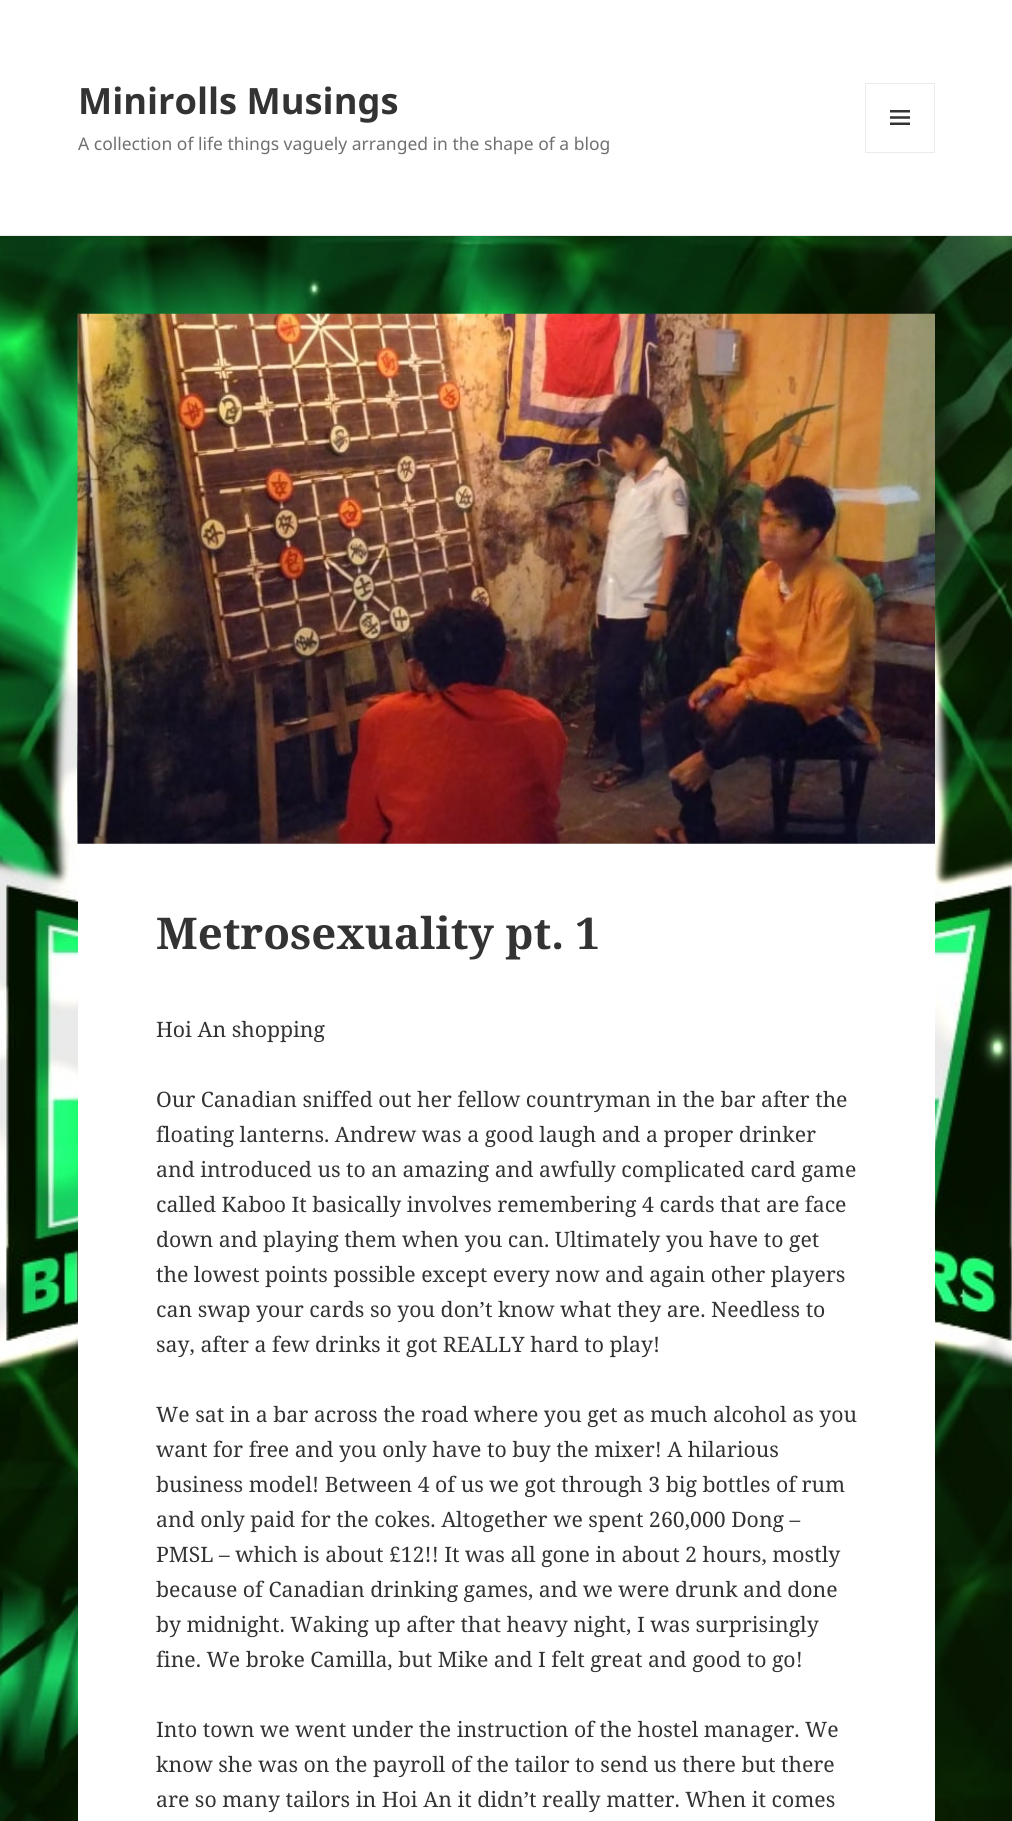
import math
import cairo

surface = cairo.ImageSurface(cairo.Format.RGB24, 1012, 1821)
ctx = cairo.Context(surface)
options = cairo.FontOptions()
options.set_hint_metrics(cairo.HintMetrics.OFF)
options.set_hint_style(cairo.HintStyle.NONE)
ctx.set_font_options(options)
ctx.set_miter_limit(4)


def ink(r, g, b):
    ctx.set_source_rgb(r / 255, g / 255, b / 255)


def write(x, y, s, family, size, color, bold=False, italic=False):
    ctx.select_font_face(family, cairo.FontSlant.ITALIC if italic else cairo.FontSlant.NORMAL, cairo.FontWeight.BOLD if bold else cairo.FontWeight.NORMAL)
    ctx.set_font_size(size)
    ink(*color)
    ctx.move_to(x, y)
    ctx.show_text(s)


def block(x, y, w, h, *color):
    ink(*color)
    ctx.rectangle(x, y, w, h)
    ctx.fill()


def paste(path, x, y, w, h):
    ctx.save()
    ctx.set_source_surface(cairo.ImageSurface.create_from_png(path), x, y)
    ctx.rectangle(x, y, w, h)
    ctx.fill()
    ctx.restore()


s1 = dict(family="Noto Sans", size=36.25, color=(51, 51, 51), bold=True)
s2 = dict(family="Noto Sans", size=17.5, color=(112, 112, 112))
s3 = dict(family="Noto Serif", size=43.75, color=(51, 51, 51), bold=True)
s4 = dict(family="Noto Serif", size=21.25, color=(51, 51, 51))

ink(255, 255, 255)
ctx.paint()
paste("pic1.png", 0, 236, 1012, 1585)
block(0, 235, 1012, 1, 235, 235, 235)
write(78, 114, "Minirolls Musings", **s1)
ctx.rectangle(865.5, 83.5, 69, 69)
ink(235, 235, 235)
ctx.set_line_width(1)
ctx.stroke()
paste("pic2.png", 890, 110, 20, 15)
write(78, 150, "A collection of life things vaguely arranged in the shape of a blog", **s2)
block(78, 843, 857, 978, 255, 255, 255)
paste("pic3.png", 77, 313, 858, 531)
write(156, 949, "Metrosexuality pt. 1", **s3)
write(156, 1037, "Hoi An shopping", **s4)
write(156, 1107, "Our Canadian sniffed out her fellow countryman in the bar after the", **s4)
write(156, 1142, "floating lanterns. Andrew was a good laugh and a proper drinker", **s4)
write(156, 1177, "and introduced us to an amazing and awfully complicated card game", **s4)
write(156, 1212, "called Kaboo It basically involves remembering 4 cards that are face", **s4)
write(156, 1247, "down and playing them when you can. Ultimately you have to get", **s4)
write(156, 1282, "the lowest points possible except every now and again other players", **s4)
write(156, 1317, "can swap your cards so you don’t know what they are. Needless to", **s4)
write(156, 1352, "say, after a few drinks it got REALLY hard to play!", **s4)
write(156, 1422, "We sat in a bar across the road where you get as much alcohol as you", **s4)
write(156, 1457, "want for free and you only have to buy the mixer! A hilarious", **s4)
write(156, 1492, "business model! Between 4 of us we got through 3 big bottles of rum", **s4)
write(156, 1527, "and only paid for the cokes. Altogether we spent 260,000 Dong –", **s4)
write(156, 1562, "PMSL – which is about £12!! It was all gone in about 2 hours, mostly", **s4)
write(156, 1597, "because of Canadian drinking games, and we were drunk and done", **s4)
write(156, 1632, "by midnight. Waking up after that heavy night, I was surprisingly", **s4)
write(156, 1667, "fine. We broke Camilla, but Mike and I felt great and good to go!", **s4)
write(156, 1737, "Into town we went under the instruction of the hostel manager. We", **s4)
write(156, 1772, "know she was on the payroll of the tailor to send us there but there", **s4)
write(156, 1807, "are so many tailors in Hoi An it didn’t really matter. When it comes", **s4)
surface.write_to_png("screenshot.png")
